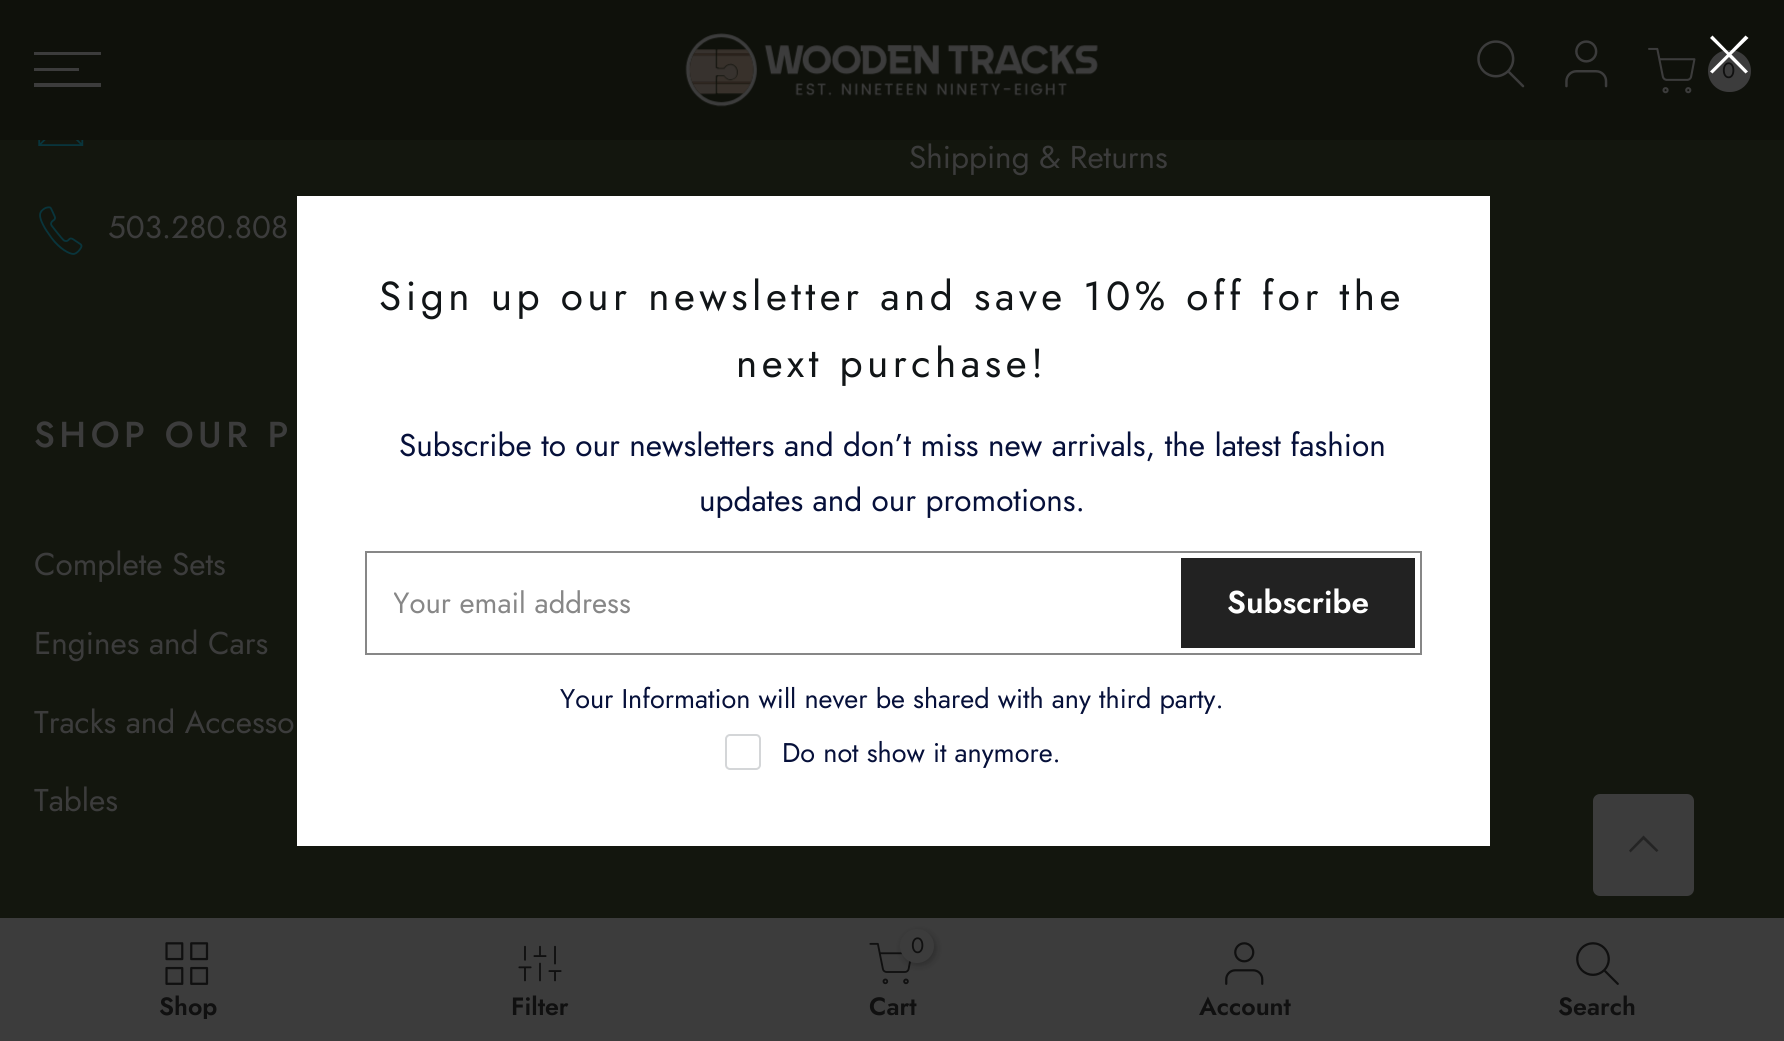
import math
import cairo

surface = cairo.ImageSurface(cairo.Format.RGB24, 1784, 1041)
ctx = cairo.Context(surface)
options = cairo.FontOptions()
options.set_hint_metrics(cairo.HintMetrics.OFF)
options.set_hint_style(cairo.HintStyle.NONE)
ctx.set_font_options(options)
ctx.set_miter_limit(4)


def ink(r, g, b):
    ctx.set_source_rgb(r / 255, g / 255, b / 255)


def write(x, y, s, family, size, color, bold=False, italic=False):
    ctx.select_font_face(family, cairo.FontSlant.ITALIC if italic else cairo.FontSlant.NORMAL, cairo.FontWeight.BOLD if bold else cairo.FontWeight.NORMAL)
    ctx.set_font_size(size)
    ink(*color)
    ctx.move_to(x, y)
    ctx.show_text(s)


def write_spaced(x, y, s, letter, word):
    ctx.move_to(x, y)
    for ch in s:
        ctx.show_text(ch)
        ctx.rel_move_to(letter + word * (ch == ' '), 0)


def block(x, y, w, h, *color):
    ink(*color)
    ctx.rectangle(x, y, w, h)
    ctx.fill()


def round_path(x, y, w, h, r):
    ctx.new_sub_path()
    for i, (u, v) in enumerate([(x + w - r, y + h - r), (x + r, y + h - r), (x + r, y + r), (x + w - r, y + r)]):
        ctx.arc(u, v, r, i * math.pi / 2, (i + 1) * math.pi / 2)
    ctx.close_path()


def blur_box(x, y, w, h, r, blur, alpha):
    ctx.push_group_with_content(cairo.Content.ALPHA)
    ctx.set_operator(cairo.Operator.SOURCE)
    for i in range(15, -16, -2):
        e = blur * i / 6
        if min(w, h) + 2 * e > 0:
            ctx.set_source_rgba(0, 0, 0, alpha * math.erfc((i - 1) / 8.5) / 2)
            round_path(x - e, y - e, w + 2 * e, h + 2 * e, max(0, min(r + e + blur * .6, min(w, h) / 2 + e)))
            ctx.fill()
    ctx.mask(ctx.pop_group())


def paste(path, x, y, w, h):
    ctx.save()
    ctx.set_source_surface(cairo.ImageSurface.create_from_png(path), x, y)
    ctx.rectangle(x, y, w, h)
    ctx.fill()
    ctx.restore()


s1 = dict(family="Jost", size=22, color=(16, 16, 16))
s2 = dict(family="Jost", size=31.5, color=(60, 60, 60))
s3 = dict(family="Jost", size=31.5, color=(6, 16, 58))
s4 = dict(family="Jost", size=29.25, color=(135, 135, 135))
s5 = dict(family="Jost SemiBold", size=31.5, color=(255, 255, 255))
s6 = dict(family="Jost", size=27, color=(6, 16, 58))
s7 = dict(family="Jost SemiBold", size=25, color=(16, 16, 16))

ink(19, 22, 14)
ctx.paint()
block(0, 0, 1784, 140, 15, 17, 11)
block(34, 52, 67, 3, 60, 60, 60)
block(34, 68, 45, 3, 60, 60, 60)
block(34, 83, 67, 4, 60, 60, 60)
paste("pic1.png", 685, 33, 413, 74)
paste("pic2.png", 1477, 40, 48, 48)
paste("pic3.png", 1565, 40, 43, 48)
paste("pic4.png", 1648, 47, 48, 47)
round_path(1708, 50, 43, 42, 21)
ctx.fill()
write(1722, 78, "0", **s1)
write(909, 168, "Shipping & Returns", **s2)
paste("pic5.png", 38, 140, 46, 6)
paste("pic6.png", 39, 206, 44, 49)
write(108, 238, "503.280.808", **s2)
ctx.select_font_face("Jost Medium")
ctx.set_font_size(36)
write_spaced(34, 447, "SHOP OUR P", 4.5, 0)
write(34, 575, "Complete Sets", **s2)
write(34, 654, "Engines and Cars", **s2)
write(34, 733, "Tracks and Accesso", **s2)
write(34, 811, "Tables", **s2)
block(297, 196, 1193, 650, 255, 255, 255)
ctx.new_path()
ctx.move_to(1712.5, 35.5)
ctx.line_to(1710, 38)
ctx.line_to(1727, 54.5)
ctx.line_to(1710, 71.5)
ctx.line_to(1712.5, 73.5)
ctx.line_to(1729, 57)
ctx.line_to(1745.5, 73.5)
ctx.line_to(1748, 71.5)
ctx.line_to(1731.5, 54.5)
ctx.line_to(1748.5, 38)
ctx.line_to(1745.5, 35.5)
ctx.line_to(1729, 52.5)
ctx.close_path()
ctx.fill()
ctx.set_font_size(40.5)
ink(17, 21, 23)
write_spaced(379, 310, "Sign up our newsletter and save 10% off for the", 4.5, 0)
write_spaced(736, 377, "next purchase!", 4.5, 0)
write(399, 456, "Subscribe to our newsletters and don’t miss new arrivals, the latest fashion", **s3)
write(699, 511, "updates and our promotions.", **s3)
ctx.rectangle(366, 552, 1055, 102)
ink(135, 135, 135)
ctx.stroke()
ctx.save()
ctx.rectangle(394, 581, 765, 42)
ctx.clip()
write(393, 613, "Your email address", **s4)
ctx.restore()
block(1181, 558, 234, 90, 34, 34, 34)
write(1227, 613, "Subscribe", **s5)
write(560, 708, "Your Information will never be shared with any third party.", **s6)
round_path(726, 735, 34, 34, 4)
ink(212, 214, 216)
ctx.stroke()
write(782, 762, "Do not show it anymore.", **s6)
ink(60, 60, 60)
round_path(1593, 794, 101, 102, 7)
ctx.fill()
ink(36, 36, 36)
ctx.new_path()
ctx.move_to(1645.5, 837.5)
ctx.line_to(1643.5, 835.5)
ctx.line_to(1629, 850.5)
ctx.line_to(1630.5, 852.5)
ctx.line_to(1643.5, 839.5)
ctx.line_to(1656.5, 852)
ctx.line_to(1658.5, 850.5)
ctx.close_path()
ctx.fill()
block(0, 918, 1784, 123, 60, 60, 60)
paste("pic7.png", 165, 942, 44, 43)
ctx.save()
ctx.rectangle(34, 995, 308, 24)
ctx.clip()
write(159, 1015, "Shop", **s7)
ctx.restore()
paste("pic8.png", 518, 945, 44, 37)
write(511, 1015, "Filter", **s7)
paste("pic9.png", 869, 942, 43, 43)
ink(9, 9, 9)
blur_box(902, 932, 34, 33, 16.5, 3.5, 0.3)
ink(60, 60, 60)
ctx.arc(917, 946, 17, 0, 2 * math.pi)
ctx.fill()
write(911, 953, "0", **s1)
write(869, 1015, "Cart", **s7)
paste("pic10.png", 1225, 942, 39, 43)
write(1199, 1015, "Account", **s7)
paste("pic11.png", 1576, 942, 43, 43)
write(1558, 1015, "Search", **s7)
surface.write_to_png("screenshot.png")
